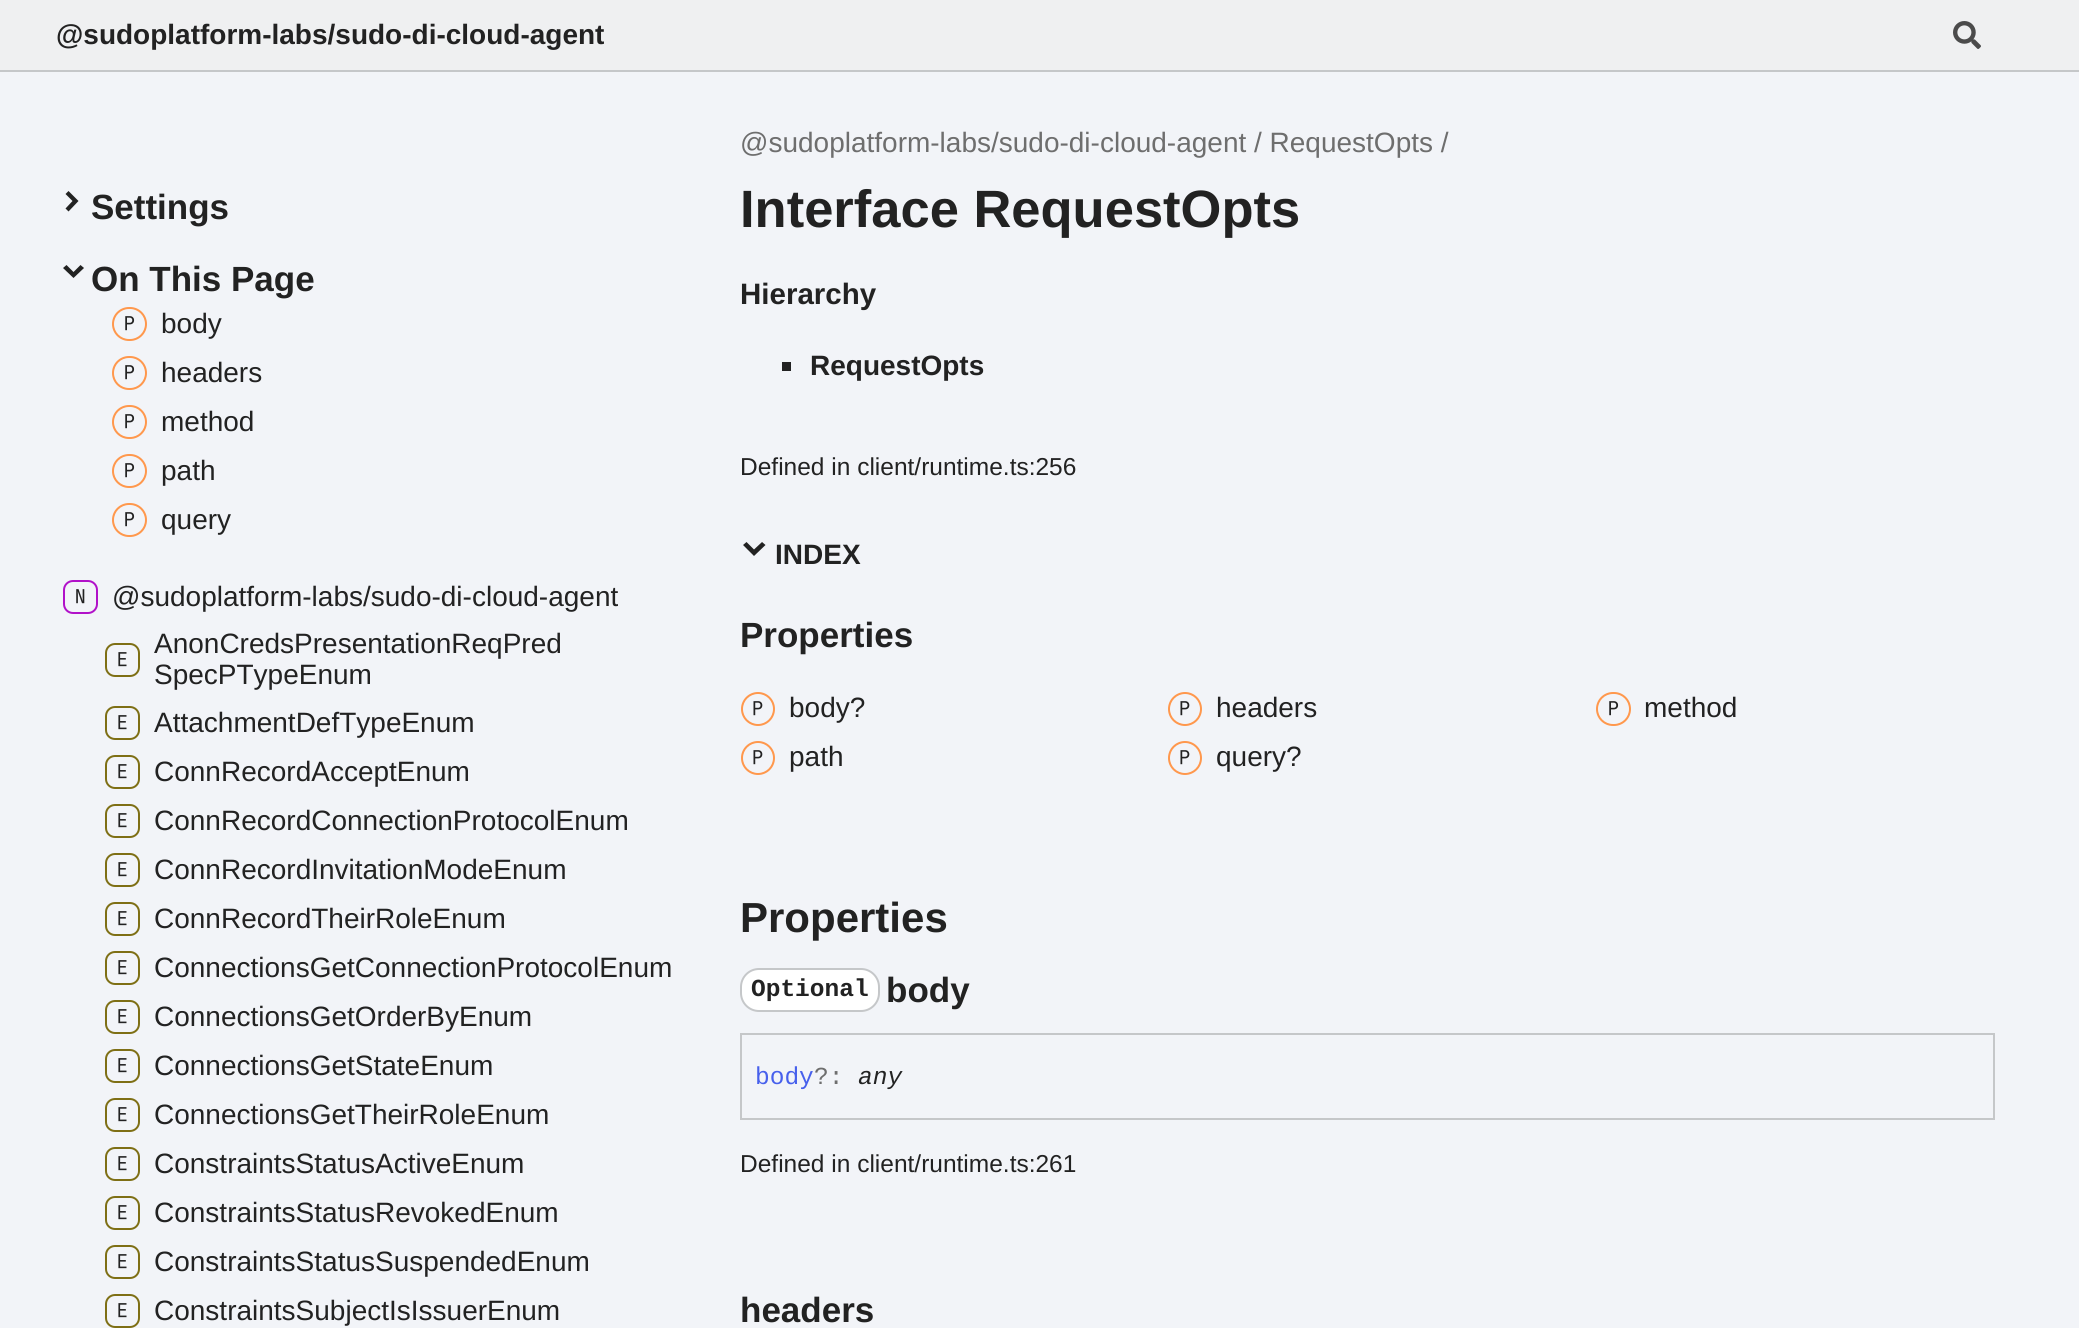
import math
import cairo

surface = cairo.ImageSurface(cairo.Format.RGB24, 2079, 1328)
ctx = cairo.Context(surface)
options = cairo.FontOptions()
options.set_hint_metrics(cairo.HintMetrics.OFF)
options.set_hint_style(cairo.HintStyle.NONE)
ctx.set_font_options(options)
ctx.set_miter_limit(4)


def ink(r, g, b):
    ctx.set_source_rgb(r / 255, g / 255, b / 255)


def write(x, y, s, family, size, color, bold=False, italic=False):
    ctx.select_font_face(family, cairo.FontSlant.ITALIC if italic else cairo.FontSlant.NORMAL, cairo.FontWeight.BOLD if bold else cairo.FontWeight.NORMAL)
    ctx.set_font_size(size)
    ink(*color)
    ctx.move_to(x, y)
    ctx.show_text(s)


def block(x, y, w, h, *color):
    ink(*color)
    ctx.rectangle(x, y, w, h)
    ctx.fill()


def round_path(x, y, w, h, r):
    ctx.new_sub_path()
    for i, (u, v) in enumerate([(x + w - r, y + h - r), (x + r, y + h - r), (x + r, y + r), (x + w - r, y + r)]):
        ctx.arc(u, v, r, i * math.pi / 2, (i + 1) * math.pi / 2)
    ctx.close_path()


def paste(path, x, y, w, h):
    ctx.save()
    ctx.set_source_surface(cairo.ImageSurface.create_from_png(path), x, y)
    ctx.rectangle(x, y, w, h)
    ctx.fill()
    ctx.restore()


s1 = dict(family="Liberation Sans", size=28, color=(34, 34, 34), bold=True)
s2 = dict(family="Liberation Sans", size=35, color=(34, 34, 34), bold=True)
s3 = dict(family="Liberation Sans", size=28, color=(34, 34, 34))
s4 = dict(family="Liberation Sans", size=28, color=(110, 110, 110))
s5 = dict(family="Liberation Sans", size=52.5, color=(34, 34, 34), bold=True)
s6 = dict(family="Liberation Sans", size=29.5, color=(34, 34, 34), bold=True)
s7 = dict(family="Liberation Sans", size=24.5, color=(34, 34, 34))
s8 = dict(family="Liberation Sans", size=42, color=(34, 34, 34), bold=True)
s9 = dict(family="Liberation Mono", size=24.5, color=(34, 34, 34), bold=True)
s10 = dict(family="Liberation Mono", size=24.5, color=(71, 96, 236))
s11 = dict(family="Liberation Mono", size=24.5, color=(110, 110, 110))
s12 = dict(family="Liberation Mono", size=24.5, color=(34, 34, 34), italic=True)

ink(242, 244, 248)
ctx.paint()
block(0, 0, 2079, 70, 239, 240, 241)
block(0, 70, 2079, 2, 197, 199, 201)
write(56, 44, "@sudoplatform-labs/sudo-di-cloud-agent", **s1)
paste("pic1.png", 1953, 21, 28, 28)
ctx.new_path()
ctx.move_to(68.5, 211.5)
ctx.line_to(78.5, 201)
ctx.line_to(68.5, 191)
ctx.line_to(65.5, 194)
ctx.line_to(72.5, 201)
ctx.line_to(65.5, 208.5)
ctx.close_path()
ctx.fill()
write(91, 219, "Settings", **s2)
ctx.new_path()
ctx.move_to(63, 268)
ctx.line_to(73.5, 278)
ctx.line_to(84, 268)
ctx.line_to(80.5, 265)
ctx.line_to(73.5, 272)
ctx.line_to(66.5, 265)
ctx.close_path()
ctx.fill()
write(91, 291, "On This Page", **s2)
paste("pic2.png", 112, 307, 35, 34)
write(161, 333, "body", **s3)
paste("pic2.png", 112, 356, 35, 34)
write(161, 382, "headers", **s3)
paste("pic2.png", 112, 405, 35, 34)
write(161, 431, "method", **s3)
paste("pic2.png", 112, 454, 35, 34)
write(161, 480, "path", **s3)
paste("pic2.png", 112, 503, 35, 34)
write(161, 529, "query", **s3)
paste("pic3.png", 63, 580, 35, 34)
write(112, 606, "@sudoplatform-labs/sudo-di-cloud-agent", **s3)
paste("pic4.png", 105, 643, 35, 34)
write(154, 653, "AnonCredsPresentationReqPred", **s3)
write(154, 684, "SpecPTypeEnum", **s3)
paste("pic4.png", 105, 706, 35, 34)
write(154, 732, "AttachmentDefTypeEnum", **s3)
paste("pic4.png", 105, 755, 35, 34)
write(154, 781, "ConnRecordAcceptEnum", **s3)
paste("pic4.png", 105, 804, 35, 34)
write(154, 830, "ConnRecordConnectionProtocolEnum", **s3)
paste("pic4.png", 105, 853, 35, 34)
write(154, 879, "ConnRecordInvitationModeEnum", **s3)
paste("pic4.png", 105, 902, 35, 34)
write(154, 928, "ConnRecordTheirRoleEnum", **s3)
paste("pic4.png", 105, 951, 35, 34)
write(154, 977, "ConnectionsGetConnectionProtocolEnum", **s3)
paste("pic4.png", 105, 1000, 35, 34)
write(154, 1026, "ConnectionsGetOrderByEnum", **s3)
paste("pic4.png", 105, 1049, 35, 34)
write(154, 1075, "ConnectionsGetStateEnum", **s3)
paste("pic4.png", 105, 1098, 35, 34)
write(154, 1124, "ConnectionsGetTheirRoleEnum", **s3)
paste("pic4.png", 105, 1147, 35, 34)
write(154, 1173, "ConstraintsStatusActiveEnum", **s3)
paste("pic4.png", 105, 1196, 35, 34)
write(154, 1222, "ConstraintsStatusRevokedEnum", **s3)
paste("pic4.png", 105, 1245, 35, 34)
write(154, 1271, "ConstraintsStatusSuspendedEnum", **s3)
paste("pic4.png", 105, 1294, 35, 34)
write(154, 1320, "ConstraintsSubjectIsIssuerEnum", **s3)
write(740, 152, "@sudoplatform-labs/sudo-di-cloud-agent / RequestOpts /", **s4)
write(740, 227, "Interface RequestOpts", **s5)
write(740, 304, "Hierarchy", **s6)
block(782, 362, 9, 9, 34, 34, 34)
write(810, 375, "RequestOpts", **s1)
write(740, 475, "Defined in client/runtime.ts:256", **s7)
ctx.new_path()
ctx.move_to(743, 545)
ctx.line_to(754, 556)
ctx.line_to(765.5, 545)
ctx.line_to(762, 542)
ctx.line_to(754, 549.5)
ctx.line_to(746.5, 542)
ctx.close_path()
ctx.fill()
write(775, 564, "INDEX", **s1)
write(740, 647, "Properties", **s2)
paste("pic5.png", 741, 692, 34, 34)
write(789, 717, "body?", **s3)
paste("pic5.png", 1168, 692, 34, 34)
write(1216, 717, "headers", **s3)
paste("pic2.png", 1596, 692, 35, 34)
write(1644, 717, "method", **s3)
paste("pic5.png", 741, 741, 34, 34)
write(789, 766, "path", **s3)
paste("pic5.png", 1168, 741, 34, 34)
write(1216, 766, "query?", **s3)
write(740, 932, "Properties", **s8)
ink(255, 255, 255)
round_path(741, 969, 138, 42, 18)
ctx.fill_preserve()
ink(197, 199, 201)
ctx.stroke()
write(751, 996, "Optional", **s9)
write(886, 1002, "body", **s2)
ctx.rectangle(741, 1034, 1253, 85)
ink(197, 199, 201)
ctx.stroke()
write(755, 1084, "body", **s10)
write(814, 1084, "?:", **s11)
write(858, 1084, "any", **s12)
write(740, 1172, "Defined in client/runtime.ts:261", **s7)
write(740, 1322, "headers", **s2)
surface.write_to_png("screenshot.png")
